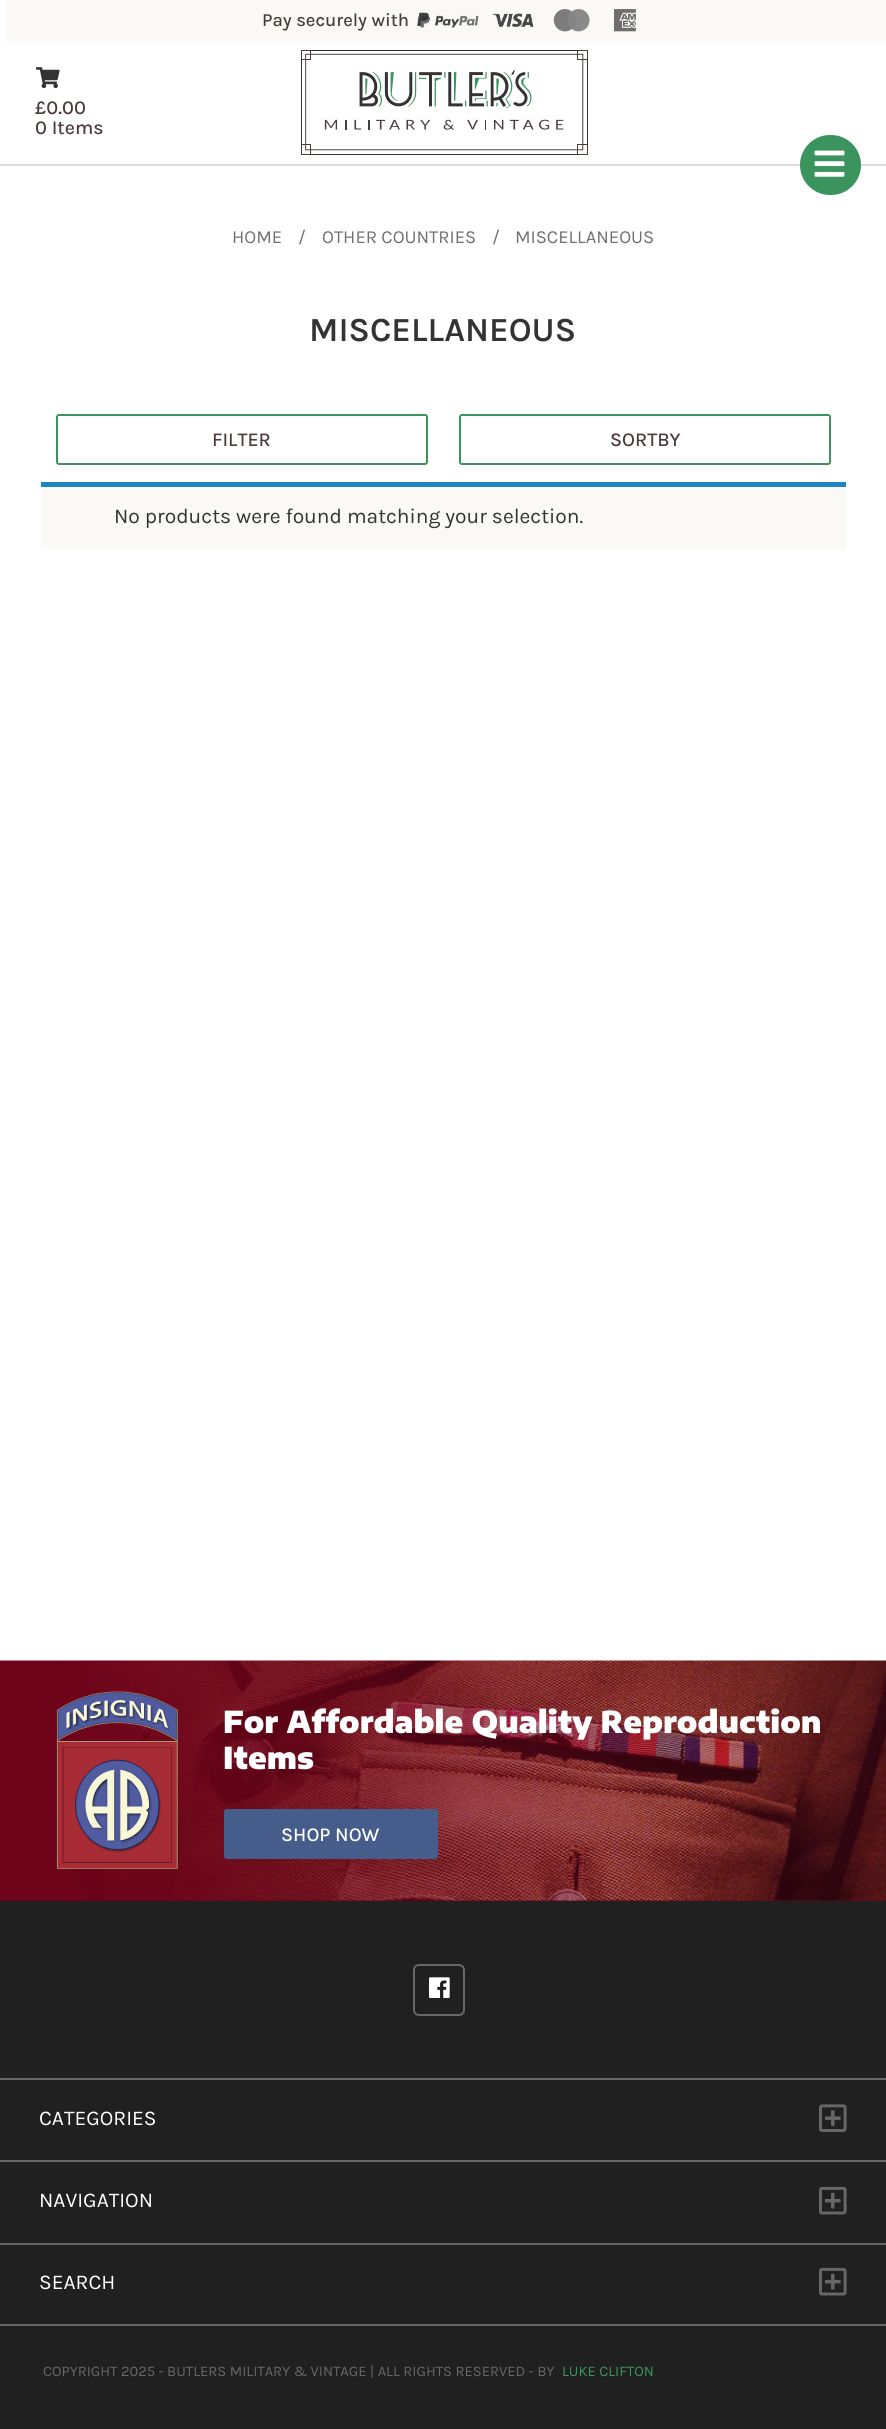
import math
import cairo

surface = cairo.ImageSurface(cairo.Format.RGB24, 886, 2429)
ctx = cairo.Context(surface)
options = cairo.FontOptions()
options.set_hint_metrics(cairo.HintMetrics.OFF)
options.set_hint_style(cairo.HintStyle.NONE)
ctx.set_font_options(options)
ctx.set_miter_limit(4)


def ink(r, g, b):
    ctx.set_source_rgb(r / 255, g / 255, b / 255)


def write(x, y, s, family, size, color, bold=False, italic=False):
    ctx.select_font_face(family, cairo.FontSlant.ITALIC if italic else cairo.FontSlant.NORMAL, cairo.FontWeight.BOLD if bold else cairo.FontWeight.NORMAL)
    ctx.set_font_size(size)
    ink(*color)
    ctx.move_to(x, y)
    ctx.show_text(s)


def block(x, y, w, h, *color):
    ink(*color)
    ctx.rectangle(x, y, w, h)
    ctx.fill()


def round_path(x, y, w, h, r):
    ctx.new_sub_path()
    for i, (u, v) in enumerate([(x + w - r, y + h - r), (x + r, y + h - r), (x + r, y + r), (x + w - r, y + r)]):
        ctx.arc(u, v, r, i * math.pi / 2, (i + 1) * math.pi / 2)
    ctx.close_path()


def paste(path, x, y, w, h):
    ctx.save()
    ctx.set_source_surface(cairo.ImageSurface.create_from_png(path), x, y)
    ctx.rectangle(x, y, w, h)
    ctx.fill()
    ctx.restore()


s1 = dict(family="Karla Medium", size=18.4, color=(71, 61, 59))
s2 = dict(family="Karla Medium", size=19.5, color=(71, 61, 59))
s3 = dict(family="Karla", size=18.4, color=(111, 111, 111))
s4 = dict(family="Karla SemiBold", size=34, color=(51, 51, 51))
s5 = dict(family="Karla", size=21, color=(51, 51, 51))
s6 = dict(family="Encode Sans Semi Expanded Black", size=30.2, color=(255, 255, 255))
s7 = dict(family="Karla Medium", size=19.5, color=(255, 255, 255))
s8 = dict(family="Karla", size=21, color=(255, 255, 255))
s9 = dict(family="Karla", size=14.7, color=(103, 103, 103))
s10 = dict(family="Karla", size=14.7, color=(59, 148, 94))

ink(255, 255, 255)
ctx.paint()
block(6, 0, 880, 41, 250, 249, 246)
write(262, 26, "Pay securely with", **s1)
paste("pic1.png", 417, 9, 219, 23)
block(0, 164, 886, 2, 219, 219, 219)
paste("pic2.png", 36, 67, 24, 22)
write(35, 114, "£0.00", **s2)
write(35, 134, "0 Items", **s2)
paste("pic3.png", 301, 50, 287, 105)
ink(59, 148, 94)
round_path(800, 135, 61, 60, 30)
ctx.fill()
paste("pic4.png", 814, 150, 31, 27)
write(232, 243, "HOME", **s3)
write(298, 243, "/", **s3)
write(322, 243, "OTHER COUNTRIES", **s3)
write(492, 243, "/", **s3)
write(515, 243, "MISCELLANEOUS", **s3)
write(309, 341, "MISCELLANEOUS", **s4)
round_path(57, 415, 370, 49, 2)
ink(59, 148, 94)
ctx.stroke()
write(212, 446, "FILTER", **s2)
round_path(460, 415, 370, 49, 2)
ink(59, 148, 94)
ctx.stroke()
write(610, 446, "SORTBY", **s2)
block(41, 487, 805, 62, 250, 249, 246)
block(41, 482, 805, 5, 30, 133, 190)
write(114, 523, "No products were found matching your selection.", **s5)
block(0, 1900, 886, 1, 110, 3, 26)
paste("pic5.png", 0, 1660, 886, 241)
paste("pic6.png", 56, 1691, 122, 178)
write(223, 1733, "For Affordable Quality Reproduction", **s6)
write(223, 1769, "Items", **s6)
ink(70, 92, 139)
round_path(224, 1809, 214, 50, 3)
ctx.fill()
write(281, 1841, "SHOP NOW", **s7)
block(0, 1901, 886, 528, 32, 32, 32)
round_path(414, 1965, 50, 50, 5)
ink(103, 103, 103)
ctx.stroke()
paste("pic7.png", 429, 1977, 21, 21)
block(0, 2078, 886, 2, 103, 103, 103)
write(39, 2125, "CATEGORIES", **s8)
paste("pic8.png", 819, 2104, 28, 28)
block(0, 2160, 886, 2, 103, 103, 103)
write(39, 2207, "NAVIGATION", **s8)
paste("pic9.png", 819, 2186, 28, 29)
block(0, 2243, 886, 2, 103, 103, 103)
write(39, 2289, "SEARCH", **s8)
paste("pic9.png", 819, 2267, 28, 29)
block(0, 2324, 886, 2, 103, 103, 103)
write(43, 2376, "COPYRIGHT 2025 - BUTLERS MILITARY & VINTAGE | ALL RIGHTS RESERVED - BY", **s9)
write(562, 2376, "LUKE CLIFTON", **s10)
surface.write_to_png("screenshot.png")
